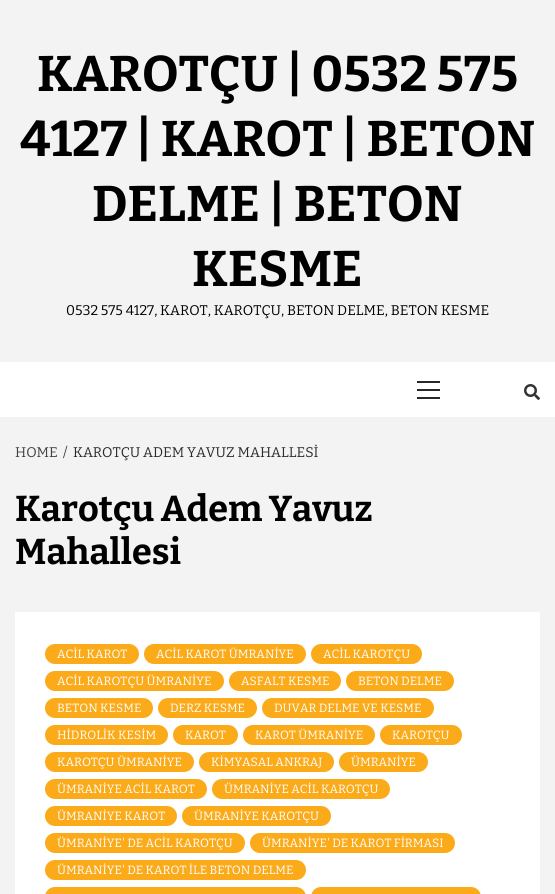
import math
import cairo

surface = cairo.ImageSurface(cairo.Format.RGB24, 555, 894)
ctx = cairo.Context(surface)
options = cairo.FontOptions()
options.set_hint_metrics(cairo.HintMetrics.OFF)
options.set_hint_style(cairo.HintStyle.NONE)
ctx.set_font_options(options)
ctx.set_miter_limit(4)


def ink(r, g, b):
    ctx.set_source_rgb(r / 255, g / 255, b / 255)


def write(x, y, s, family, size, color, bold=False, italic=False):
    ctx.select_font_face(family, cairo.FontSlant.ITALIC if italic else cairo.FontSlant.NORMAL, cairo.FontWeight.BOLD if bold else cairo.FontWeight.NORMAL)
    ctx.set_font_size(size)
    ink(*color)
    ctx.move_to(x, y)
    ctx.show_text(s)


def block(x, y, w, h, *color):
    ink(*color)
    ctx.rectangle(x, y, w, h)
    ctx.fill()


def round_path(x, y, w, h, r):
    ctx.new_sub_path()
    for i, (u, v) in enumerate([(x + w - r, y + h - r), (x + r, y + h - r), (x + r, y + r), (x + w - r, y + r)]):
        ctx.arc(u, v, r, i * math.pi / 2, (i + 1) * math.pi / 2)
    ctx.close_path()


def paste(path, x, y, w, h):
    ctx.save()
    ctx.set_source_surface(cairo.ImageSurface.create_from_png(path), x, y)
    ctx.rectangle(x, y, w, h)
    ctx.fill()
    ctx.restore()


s1 = dict(family="Bitter", size=50, color=(0, 0, 0), bold=True)
s2 = dict(family="Bitter", size=14, color=(0, 0, 0))
s3 = dict(family="Bitter", size=14, color=(64, 64, 64))
s4 = dict(family="Bitter", size=14, color=(42, 42, 42))
s5 = dict(family="Bitter", size=36, color=(0, 0, 0), bold=True)
s6 = dict(family="Bitter", size=12, color=(255, 255, 255))

ink(243, 243, 243)
ctx.paint()
write(37, 91, "KAROTÇU | 0532 575", **s1)
write(20, 156, "4127 | KAROT | BETON", **s1)
write(92, 221, "DELME | BETON", **s1)
write(192, 286, "KESME", **s1)
write(66, 315, "0532 575 4127, KAROT, KAROTÇU, BETON DELME, BETON KESME", **s2)
block(0, 362, 555, 55, 255, 255, 255)
block(417, 389, 23, 2, 40, 40, 40)
block(417, 381, 23, 2, 40, 40, 40)
block(417, 397, 23, 2, 40, 40, 40)
paste("pic1.png", 524, 384, 16, 16)
write(15, 457, "HOME", **s3)
write(63, 457, "/", **s4)
write(73, 457, "KAROTÇU ADEM YAVUZ MAHALLESİ", **s4)
write(15, 521, "Karotçu Adem Yavuz", **s5)
write(15, 564, "Mahallesi", **s5)
block(15, 612, 525, 282, 255, 255, 255)
ink(251, 170, 26)
round_path(45, 644, 94, 20, 10)
ctx.fill()
write(57, 658, "ACİL KAROT", **s6)
ink(251, 170, 26)
round_path(144, 644, 162, 20, 10)
ctx.fill()
write(156, 658, "ACİL KAROT ÜMRANİYE", **s6)
ink(251, 170, 26)
round_path(311, 644, 111, 20, 10)
ctx.fill()
write(323, 658, "ACİL KAROTÇU", **s6)
ink(251, 170, 26)
round_path(45, 671, 179, 20, 10)
ctx.fill()
write(57, 685, "ACİL KAROTÇU ÜMRANİYE", **s6)
ink(251, 170, 26)
round_path(229, 671, 112, 20, 10)
ctx.fill()
write(241, 685, "ASFALT KESME", **s6)
ink(251, 170, 26)
round_path(346, 671, 108, 20, 10)
ctx.fill()
write(358, 685, "BETON DELME", **s6)
ink(251, 170, 26)
round_path(45, 698, 108, 20, 10)
ctx.fill()
write(57, 712, "BETON KESME", **s6)
ink(251, 170, 26)
round_path(158, 698, 99, 20, 10)
ctx.fill()
write(170, 712, "DERZ KESME", **s6)
ink(251, 170, 26)
round_path(262, 698, 172, 20, 10)
ctx.fill()
write(274, 712, "DUVAR DELME VE KESME", **s6)
ink(251, 170, 26)
round_path(45, 725, 123, 20, 10)
ctx.fill()
write(57, 739, "HİDROLİK KESİM", **s6)
ink(251, 170, 26)
round_path(173, 725, 65, 20, 10)
ctx.fill()
write(185, 739, "KAROT", **s6)
ink(251, 170, 26)
round_path(243, 725, 132, 20, 10)
ctx.fill()
write(255, 739, "KAROT ÜMRANİYE", **s6)
ink(251, 170, 26)
round_path(380, 725, 82, 20, 10)
ctx.fill()
write(392, 739, "KAROTÇU", **s6)
ink(251, 170, 26)
round_path(45, 752, 149, 20, 10)
ctx.fill()
write(57, 766, "KAROTÇU ÜMRANİYE", **s6)
ink(251, 170, 26)
round_path(199, 752, 135, 20, 10)
ctx.fill()
write(211, 766, "KİMYASAL ANKRAJ", **s6)
ink(251, 170, 26)
round_path(339, 752, 89, 20, 10)
ctx.fill()
write(351, 766, "ÜMRANİYE", **s6)
ink(251, 170, 26)
round_path(45, 779, 162, 20, 10)
ctx.fill()
write(57, 793, "ÜMRANİYE ACİL KAROT", **s6)
ink(251, 170, 26)
round_path(212, 779, 178, 20, 10)
ctx.fill()
write(224, 793, "ÜMRANİYE ACİL KAROTÇU", **s6)
ink(251, 170, 26)
round_path(45, 806, 132, 20, 10)
ctx.fill()
write(57, 820, "ÜMRANİYE KAROT", **s6)
ink(251, 170, 26)
round_path(182, 806, 149, 20, 10)
ctx.fill()
write(194, 820, "ÜMRANİYE KAROTÇU", **s6)
ink(251, 170, 26)
round_path(45, 833, 200, 20, 10)
ctx.fill()
write(57, 847, "ÜMRANİYE' DE ACİL KAROTÇU", **s6)
ink(251, 170, 26)
round_path(250, 833, 205, 20, 10)
ctx.fill()
write(262, 847, "ÜMRANİYE' DE KAROT FİRMASI", **s6)
ink(251, 170, 26)
round_path(45, 860, 261, 20, 10)
ctx.fill()
write(57, 874, "ÜMRANİYE' DE KAROT İLE BETON DELME", **s6)
ink(251, 170, 26)
round_path(45, 887, 261, 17, 10)
ctx.fill()
round_path(311, 887, 170, 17, 10)
ctx.fill()
surface.write_to_png("screenshot.png")
